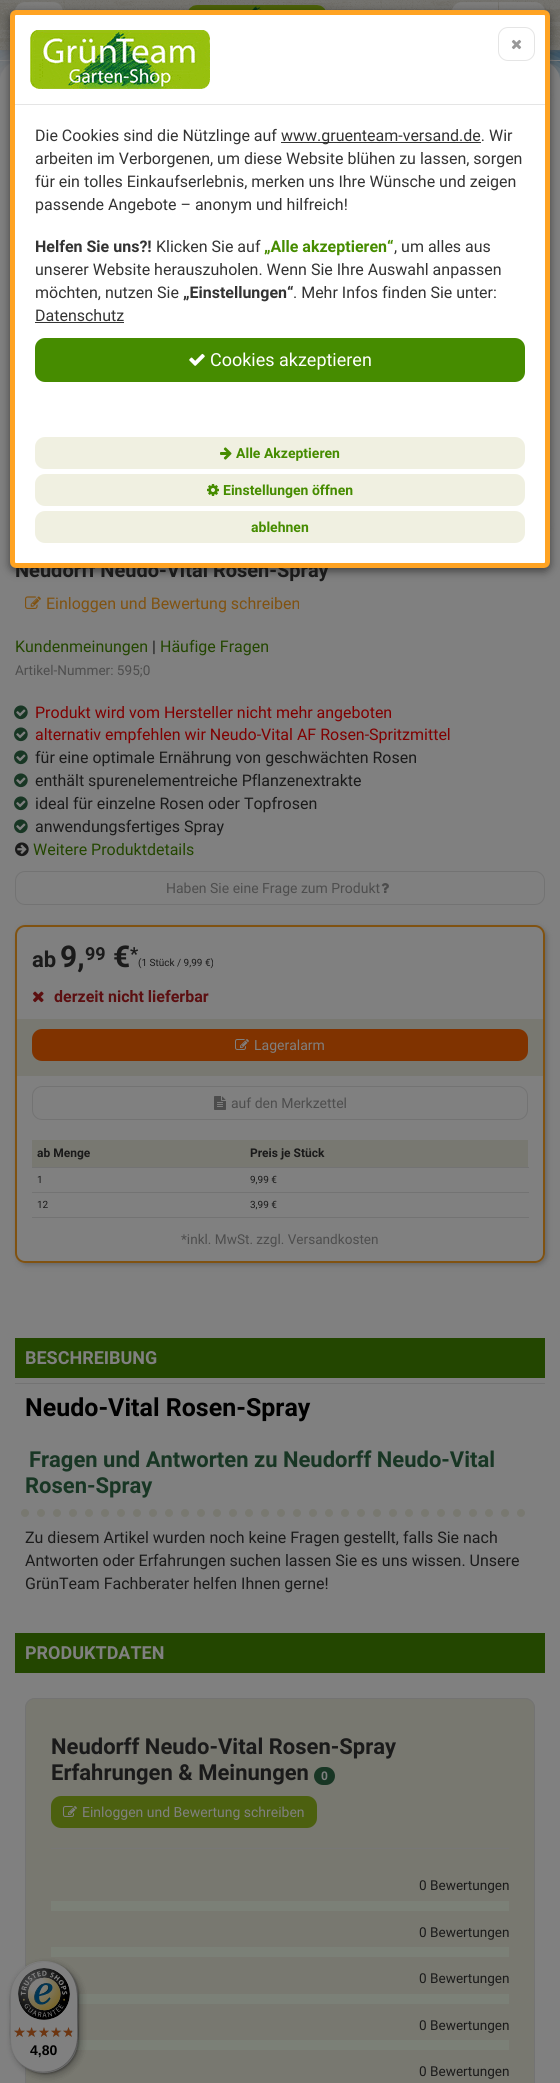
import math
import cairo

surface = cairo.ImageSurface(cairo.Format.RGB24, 560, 2083)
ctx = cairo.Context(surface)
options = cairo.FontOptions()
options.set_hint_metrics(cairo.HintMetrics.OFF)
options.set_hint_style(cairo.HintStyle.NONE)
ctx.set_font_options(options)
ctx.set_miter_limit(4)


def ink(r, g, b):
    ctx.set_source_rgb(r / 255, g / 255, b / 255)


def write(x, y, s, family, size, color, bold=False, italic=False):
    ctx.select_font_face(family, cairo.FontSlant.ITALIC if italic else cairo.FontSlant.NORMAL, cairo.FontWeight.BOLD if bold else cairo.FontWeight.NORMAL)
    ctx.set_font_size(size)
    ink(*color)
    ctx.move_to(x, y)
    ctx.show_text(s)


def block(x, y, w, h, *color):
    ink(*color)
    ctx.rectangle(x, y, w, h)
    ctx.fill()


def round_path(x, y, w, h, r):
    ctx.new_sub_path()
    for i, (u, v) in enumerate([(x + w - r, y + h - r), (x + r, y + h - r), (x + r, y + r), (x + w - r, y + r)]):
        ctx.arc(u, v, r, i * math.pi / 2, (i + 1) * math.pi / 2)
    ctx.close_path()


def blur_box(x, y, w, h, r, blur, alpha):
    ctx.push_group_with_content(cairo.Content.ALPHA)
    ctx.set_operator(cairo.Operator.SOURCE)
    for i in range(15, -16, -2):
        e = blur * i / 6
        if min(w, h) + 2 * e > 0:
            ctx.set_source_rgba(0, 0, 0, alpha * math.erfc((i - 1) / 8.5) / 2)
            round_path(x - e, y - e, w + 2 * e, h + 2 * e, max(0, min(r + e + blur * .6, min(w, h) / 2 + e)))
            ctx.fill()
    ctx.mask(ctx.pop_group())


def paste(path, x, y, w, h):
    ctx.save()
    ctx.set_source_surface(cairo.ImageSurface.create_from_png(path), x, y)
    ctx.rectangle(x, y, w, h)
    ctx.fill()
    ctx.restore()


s1 = dict(family="Roboto", size=20, color=(26, 26, 26), bold=True)
s2 = dict(family="Roboto", size=16, color=(51, 51, 51))
s3 = dict(family="Roboto", size=16, color=(51, 51, 51), bold=True)
s4 = dict(family="Roboto", size=16, color=(70, 140, 0), bold=True)
s5 = dict(family="Roboto", size=18, color=(255, 255, 255))
s6 = dict(family="Roboto", size=14, color=(70, 140, 0), bold=True)
s7 = dict(family="Roboto", size=16, color=(128, 82, 17))
s8 = dict(family="Roboto", size=16, color=(35, 70, 0))
s9 = dict(family="Roboto", size=16, color=(26, 26, 26))
s10 = dict(family="Roboto", size=13.6, color=(77, 77, 77))
s11 = dict(family="Roboto", size=16, color=(128, 0, 0))
s12 = dict(family="Roboto", size=14, color=(77, 77, 77))
s13 = dict(family="Roboto", size=22, color=(26, 26, 26), bold=True)
s14 = dict(family="Roboto", size=30, color=(26, 26, 26), bold=True)
s15 = dict(family="Roboto", size=18, color=(26, 26, 26), bold=True)
s16 = dict(family="Roboto", size=10, color=(26, 26, 26))
s17 = dict(family="Roboto", size=16, color=(92, 15, 17), bold=True)
s18 = dict(family="Roboto", size=14, color=(128, 128, 128))
s19 = dict(family="Roboto", size=12, color=(26, 26, 26), bold=True)
s20 = dict(family="Roboto", size=18, color=(128, 128, 128), bold=True)
s21 = dict(family="Roboto", size=25, color=(0, 0, 0), bold=True)
s22 = dict(family="Roboto", size=22, color=(24, 54, 36), bold=True)
s23 = dict(family="Roboto", size=12, color=(128, 128, 128), bold=True)
s24 = dict(family="Roboto", size=13.6, color=(26, 26, 26))
s25 = dict(family="Liberation Sans", size=14, color=(0, 0, 0), bold=True)

ink(255, 255, 255)
ctx.paint()
paste("pic6.png", 0, 50, 560, 31)
ink(94, 94, 94)
blur_box(3, 0, 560, 50, 0, 2.5, 1)
ink(127, 126, 126)
blur_box(-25, 53, 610, 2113, 45, 12.5, 1)
block(0, 0, 560, 50, 108, 106, 100)
paste("pic7.png", 0, 0, 560, 50)
ctx.set_source_rgba(0.502, 0.502, 0.502, 0.75)
round_path(15, 2, 48, 45, 10)
ctx.fill()
paste("pic8.png", 188, 5, 138, 5)
ctx.new_path()
ctx.move_to(462, 2)
ctx.line_to(498, 2)
ctx.line_to(498, 47)
ctx.line_to(462, 47)
ctx.curve_to(456.5, 47, 452, 42.5, 452, 37)
ctx.line_to(452, 12)
ctx.curve_to(452, 6.5, 456.5, 2, 462, 2)
ctx.close_path()
ctx.fill()
ctx.new_path()
ctx.move_to(499, 2)
ctx.line_to(535, 2)
ctx.curve_to(540.5, 2, 545, 6.5, 545, 12)
ctx.line_to(545, 37)
ctx.curve_to(545, 42.5, 540.5, 47, 535, 47)
ctx.line_to(499, 47)
ctx.close_path()
ctx.fill()
block(0, 60, 560, 1, 128, 128, 128)
ctx.new_path()
ctx.move_to(20, 61)
ctx.line_to(540, 61)
ctx.curve_to(551, 61, 560, 70, 560, 81)
ctx.line_to(560, 2083)
ctx.line_to(0, 2083)
ctx.line_to(0, 81)
ctx.curve_to(0, 70, 9, 61, 20, 61)
ctx.close_path()
ctx.fill()
ink(0, 0, 0)
blur_box(10, 13, 540, 558, 6, 4.5, 0.5)
ink(102, 102, 102)
blur_box(17, 83, 530, 458, 15, 5, 0.4)
write(15, 577, "Neudorff Neudo-Vital Rosen-Spray", **s1)
ink(255, 255, 255)
round_path(12.5, 12.5, 535, 553, 3.5)
ctx.fill_preserve()
ink(255, 163, 34)
ctx.set_line_width(5)
ctx.stroke()
block(15, 104, 530, 1, 229, 229, 229)
paste("pic1.png", 30, 30, 180, 59)
round_path(498.5, 27.5, 36, 33, 9.5)
ctx.set_line_width(1)
ctx.stroke()
paste("pic2.png", 511, 39, 11, 11)
write(35, 141, "Die Cookies sind die Nützlinge auf", **s2)
block(281, 142, 200, 1, 51, 51, 51)
write(281, 141, "www.gruenteam-versand.de. Wir", **s2)
write(35, 164, "arbeiten im Verborgenen, um diese Website blühen zu lassen, sorgen", **s2)
write(35, 187, "für ein tolles Einkaufserlebnis, merken uns Ihre Wünsche und zeigen", **s2)
write(35, 210, "passende Angebote – anonym und hilfreich!", **s2)
write(35, 252, "Helfen Sie uns?!", **s3)
write(156, 252, "Klicken Sie auf", **s2)
write(264, 252, "„Alle akzeptieren“", **s4)
write(394, 252, ", um alles aus", **s2)
write(35, 275, "unserer Website herauszuholen. Wenn Sie Ihre Auswahl anpassen", **s2)
write(35, 298, "möchten, nutzen Sie", **s2)
write(183, 298, "„Einstellungen“", **s3)
write(293, 298, ". Mehr Infos finden Sie unter:", **s2)
write(35, 321, "Datenschutz", **s2)
block(35, 322, 89, 1, 51, 51, 51)
ink(70, 140, 0)
round_path(35, 338, 490, 44, 10)
ctx.fill()
paste("pic3.png", 189, 353, 16, 13)
write(210, 366, "Cookies akzeptieren", **s5)
ink(240, 240, 225)
round_path(35, 437, 490, 32, 10)
ctx.fill()
paste("pic4.png", 220, 447, 12, 13)
write(236, 458, "Alle Akzeptieren", **s6)
ink(240, 240, 225)
round_path(35, 474, 490, 32, 10)
ctx.fill()
paste("pic5.png", 207, 484, 12, 12)
write(223, 495, "Einstellungen öffnen", **s6)
ink(240, 240, 225)
round_path(35, 511, 490, 32, 10)
ctx.fill()
write(251, 532, "ablehnen", **s6)
paste("pic9.png", 25, 596, 16, 13)
write(46, 609, "Einloggen und Bewertung schreiben", **s7)
write(15, 652, "Kundenmeinungen", **s8)
write(152, 652, "|", **s9)
write(160, 652, "Häufige Fragen", **s8)
write(15, 675, "Artikel-Nummer: 595;0", **s10)
paste("pic10.png", 14, 705, 14, 15)
write(35, 718, "Produkt wird vom Hersteller nicht mehr angeboten", **s11)
paste("pic10.png", 14, 727, 14, 15)
write(35, 740, "alternativ empfehlen wir Neudo-Vital AF Rosen-Spritzmittel", **s11)
paste("pic10.png", 14, 750, 14, 15)
write(35, 763, "für eine optimale Ernährung von geschwächten Rosen", **s9)
paste("pic10.png", 14, 773, 14, 15)
write(35, 786, "enthält spurenelementreiche Pflanzenextrakte", **s9)
paste("pic10.png", 14, 796, 14, 15)
write(35, 809, "ideal für einzelne Rosen oder Topfrosen", **s9)
paste("pic10.png", 14, 819, 14, 15)
write(35, 832, "anwendungsfertiges Spray", **s9)
paste("pic11.png", 15, 842, 14, 15)
write(33, 855, "Weitere Produktdetails", **s8)
round_path(15.5, 871.5, 529, 33, 9.5)
ink(115, 115, 115)
ctx.stroke()
write(166, 893, "Haben Sie eine Frage zum Produkt", **s12)
paste("pic12.png", 381, 883, 8, 10)
ctx.save()
ctx.set_fill_rule(cairo.FillRule.EVEN_ODD)
ctx.new_path()
ctx.move_to(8, 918)
ctx.line_to(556, 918)
ctx.line_to(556, 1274)
ctx.line_to(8, 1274)
ctx.close_path()
ctx.move_to(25, 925)
ctx.line_to(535, 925)
ctx.curve_to(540.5, 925, 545, 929.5, 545, 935)
ctx.line_to(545, 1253)
ctx.curve_to(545, 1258.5, 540.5, 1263, 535, 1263)
ctx.line_to(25, 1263)
ctx.curve_to(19.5, 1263, 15, 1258.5, 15, 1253)
ctx.line_to(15, 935)
ctx.curve_to(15, 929.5, 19.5, 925, 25, 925)
ctx.close_path()
ctx.clip()
ink(102, 102, 102)
blur_box(17, 927, 530, 338, 10, 2.5, 1)
ctx.restore()
round_path(16, 926, 528, 336, 9)
ink(128, 82, 17)
ctx.set_line_width(2)
ctx.stroke()
write(32, 967, "ab", **s13)
write(60, 967, "9,", **s14)
write(85, 960, "99", **s15)
write(113, 967, "€", **s14)
write(130, 960, "*", **s15)
write(138, 966, "(1 Stück / 9,99 €)", **s16)
paste("pic13.png", 33, 991, 11, 12)
write(54, 1002, "derzeit nicht lieferbar", **s17)
block(17, 1019, 526, 57, 120, 120, 113)
ink(128, 51, 0)
round_path(32, 1029, 496, 32, 10)
ctx.fill()
paste("pic14.png", 235, 1039, 14, 11)
write(254, 1050, "Lageralarm", **s18)
round_path(32.5, 1086.5, 495, 33, 9.5)
ink(115, 115, 115)
ctx.set_line_width(1)
ctx.stroke()
paste("pic15.png", 214, 1096, 12, 14)
write(231, 1108, "auf den Merkzettel", **s12)
block(32, 1140, 496, 27, 120, 120, 113)
write(37, 1157, "ab Menge", **s19)
block(32, 1167, 497, 1, 115, 115, 115)
write(250, 1157, "Preis je Stück", **s19)
write(37, 1183, "1", **s16)
block(32, 1192, 497, 1, 115, 115, 115)
write(250, 1183, "9,99 €", **s16)
write(37, 1208, "12", **s16)
block(32, 1217, 497, 1, 115, 115, 115)
write(250, 1208, "3,99 €", **s16)
write(181, 1244, "*inkl. MwSt. zzgl. Versandkosten", **s10)
block(15, 1338, 530, 40, 35, 70, 0)
write(25, 1364, "BESCHREIBUNG", **s20)
block(15, 1383, 530, 1, 115, 115, 115)
write(25, 1416, "Neudo-Vital Rosen-Spray", **s21)
ctx.new_path()
ctx.move_to(25, 1513)
ctx.line_to(535, 1513)
ink(120, 120, 112)
ctx.set_line_width(8)
ctx.set_line_cap(cairo.LineCap.ROUND)
ctx.set_dash([0, 16])
ctx.stroke()
write(29, 1467, "Fragen und Antworten zu Neudorff Neudo-Vital", **s22)
write(25, 1493, "Rosen-Spray", **s22)
write(25, 1543, "Zu diesem Artikel wurden noch keine Fragen gestellt, falls Sie nach", **s9)
write(25, 1566, "Antworten oder Erfahrungen suchen lassen Sie es uns wissen. Unsere", **s9)
write(25, 1589, "GrünTeam Fachberater helfen Ihnen gerne!", **s9)
block(15, 1633, 530, 40, 35, 70, 0)
write(25, 1659, "PRODUKTDATEN", **s20)
ink(120, 120, 112)
ctx.new_path()
ctx.move_to(35, 1698)
ctx.line_to(525, 1698)
ctx.curve_to(530.5, 1698, 535, 1702.5, 535, 1708)
ctx.line_to(535, 2083)
ctx.line_to(25, 2083)
ctx.line_to(25, 1708)
ctx.curve_to(25, 1702.5, 29.5, 1698, 35, 1698)
ctx.close_path()
ctx.fill()
round_path(25.5, 1698.5, 509, 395, 9.5)
ink(115, 115, 115)
ctx.set_line_width(1)
ctx.set_line_cap(cairo.LineCap.BUTT)
ctx.set_dash([])
ctx.stroke()
write(51, 1754, "Neudorff Neudo-Vital Rosen-Spray", **s13)
write(51, 1780, "Erfahrungen & Meinungen", **s13)
ink(24, 54, 36)
round_path(314, 1767, 21, 18, 9)
ctx.fill()
write(321, 1780, "0", **s23)
ink(76, 96, 15)
round_path(51, 1796, 266, 32, 10)
ctx.fill()
paste("pic16.png", 63, 1806, 14, 11)
write(82, 1817, "Einloggen und Bewertung schreiben", **s18)
block(51, 1848, 458, 1, 119, 119, 119)
write(419, 1890, "0 Bewertungen", **s24)
block(51, 1901, 458, 10, 123, 128, 119)
write(419, 1937, "0 Bewertungen", **s24)
block(51, 1947, 458, 10, 123, 128, 119)
write(419, 1983, "0 Bewertungen", **s24)
block(77, 1994, 432, 10, 123, 128, 119)
write(419, 2030, "0 Bewertungen", **s24)
block(76, 2040, 433, 10, 123, 128, 119)
write(419, 2076, "0 Bewertungen", **s24)
ink(0, 0, 0)
blur_box(13, 1964, 68, 112, 34, 4, 0.15)
blur_box(11, 1962, 68, 112, 34, 1, 0.15)
ink(115, 115, 115)
ctx.new_path()
ctx.move_to(45, 1962)
ctx.curve_to(53, 1962, 61, 1965, 67, 1970)
ctx.curve_to(50, 1955, 22, 1961, 13, 1982)
ctx.curve_to(8, 1992, 10, 2006, 10, 2017)
ctx.curve_to(10, 2032, 7, 2049, 19, 2062)
ctx.curve_to(14, 2056, 11, 2048, 11, 2040)
ctx.line_to(11, 1996)
ctx.curve_to(11, 1977, 26, 1962, 45, 1962)
ctx.close_path()
ctx.fill()
ctx.set_source_rgba(0, 0, 0, 0.2)
ctx.new_path()
ctx.move_to(21, 2064)
ctx.curve_to(38, 2079, 66, 2073, 75, 2052)
ctx.curve_to(80, 2042, 78, 2028, 78, 2017)
ctx.curve_to(78, 2002, 81, 1985, 69, 1972)
ctx.curve_to(79, 1985, 77, 2001, 77, 2016)
ctx.curve_to(77, 2027, 79, 2041, 74, 2051)
ctx.curve_to(66, 2072, 39, 2078, 21, 2064)
ctx.close_path()
ctx.fill()
ctx.set_source_rgba(0.098, 0.098, 0.098, 0.2)
ctx.new_path()
ctx.move_to(17, 2060)
ctx.curve_to(24, 2068, 33, 2073, 44, 2073)
ctx.curve_to(63, 2073, 78, 2058, 78, 2039)
ctx.line_to(78, 1995)
ctx.curve_to(78, 1984, 73, 1975, 65, 1968)
ctx.curve_to(72, 1975, 77, 1984, 77, 1994)
ctx.line_to(77, 2038)
ctx.curve_to(77, 2057, 62, 2072, 43, 2072)
ctx.curve_to(33, 2072, 24, 2067, 17, 2060)
ctx.close_path()
ctx.fill()
ctx.set_source_rgba(0.502, 0.502, 0.502, 0.3)
ctx.new_path()
ctx.move_to(10, 2038)
ctx.curve_to(10, 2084, 78, 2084, 78, 2038)
ctx.curve_to(78, 2057, 62, 2072, 44, 2072)
ctx.curve_to(25, 2072, 10, 2057, 10, 2038)
ctx.close_path()
ctx.fill()
ink(0, 0, 0)
blur_box(13, 1964, 68, 112, 34, 4, 0.15)
blur_box(11, 1962, 68, 112, 34, 1, 0.15)
ink(128, 128, 128)
round_path(10, 1961, 68, 112, 34)
ctx.fill()
ctx.set_source_rgba(0, 0, 0, 0.1)
ctx.new_path()
ctx.move_to(45, 1962)
ctx.curve_to(53, 1962, 61, 1965, 67, 1970)
ctx.curve_to(50, 1955, 22, 1961, 13, 1982)
ctx.curve_to(8, 1992, 10, 2006, 10, 2017)
ctx.curve_to(10, 2032, 7, 2049, 19, 2062)
ctx.curve_to(14, 2056, 11, 2048, 11, 2040)
ctx.line_to(11, 1996)
ctx.curve_to(11, 1977, 26, 1962, 45, 1962)
ctx.close_path()
ctx.fill()
ctx.set_source_rgba(0, 0, 0, 0.2)
ctx.new_path()
ctx.move_to(21, 2064)
ctx.curve_to(38, 2079, 66, 2073, 75, 2052)
ctx.curve_to(80, 2042, 78, 2028, 78, 2017)
ctx.curve_to(78, 2002, 81, 1985, 69, 1972)
ctx.curve_to(79, 1985, 77, 2001, 77, 2016)
ctx.curve_to(77, 2027, 79, 2041, 74, 2051)
ctx.curve_to(66, 2072, 39, 2078, 21, 2064)
ctx.close_path()
ctx.fill()
ctx.set_source_rgba(0.098, 0.098, 0.098, 0.2)
ctx.new_path()
ctx.move_to(17, 2060)
ctx.curve_to(24, 2068, 33, 2073, 44, 2073)
ctx.curve_to(63, 2073, 78, 2058, 78, 2039)
ctx.line_to(78, 1995)
ctx.curve_to(78, 1984, 73, 1975, 65, 1968)
ctx.curve_to(72, 1975, 77, 1984, 77, 1994)
ctx.line_to(77, 2038)
ctx.curve_to(77, 2057, 62, 2072, 43, 2072)
ctx.curve_to(33, 2072, 24, 2067, 17, 2060)
ctx.close_path()
ctx.fill()
ctx.set_source_rgba(0.502, 0.502, 0.502, 0.3)
ctx.new_path()
ctx.move_to(10, 2038)
ctx.curve_to(10, 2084, 78, 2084, 78, 2038)
ctx.curve_to(78, 2057, 62, 2072, 44, 2072)
ctx.curve_to(25, 2072, 10, 2057, 10, 2038)
ctx.close_path()
ctx.fill()
paste("pic17.png", 18, 1968, 52, 52)
paste("pic18.png", 14, 2027, 11, 10)
paste("pic19.png", 27, 2027, 10, 10)
paste("pic20.png", 39, 2027, 10, 10)
paste("pic21.png", 51, 2027, 11, 10)
paste("pic21.png", 63, 2027, 11, 10)
paste("pic22.png", 14, 2027, 11, 10)
paste("pic23.png", 26, 2027, 11, 10)
paste("pic24.png", 39, 2027, 10, 10)
paste("pic25.png", 51, 2027, 10, 10)
paste("pic26.png", 63, 2027, 9, 10)
write(30, 2055, "4,80", **s25)
surface.write_to_png("screenshot.png")
